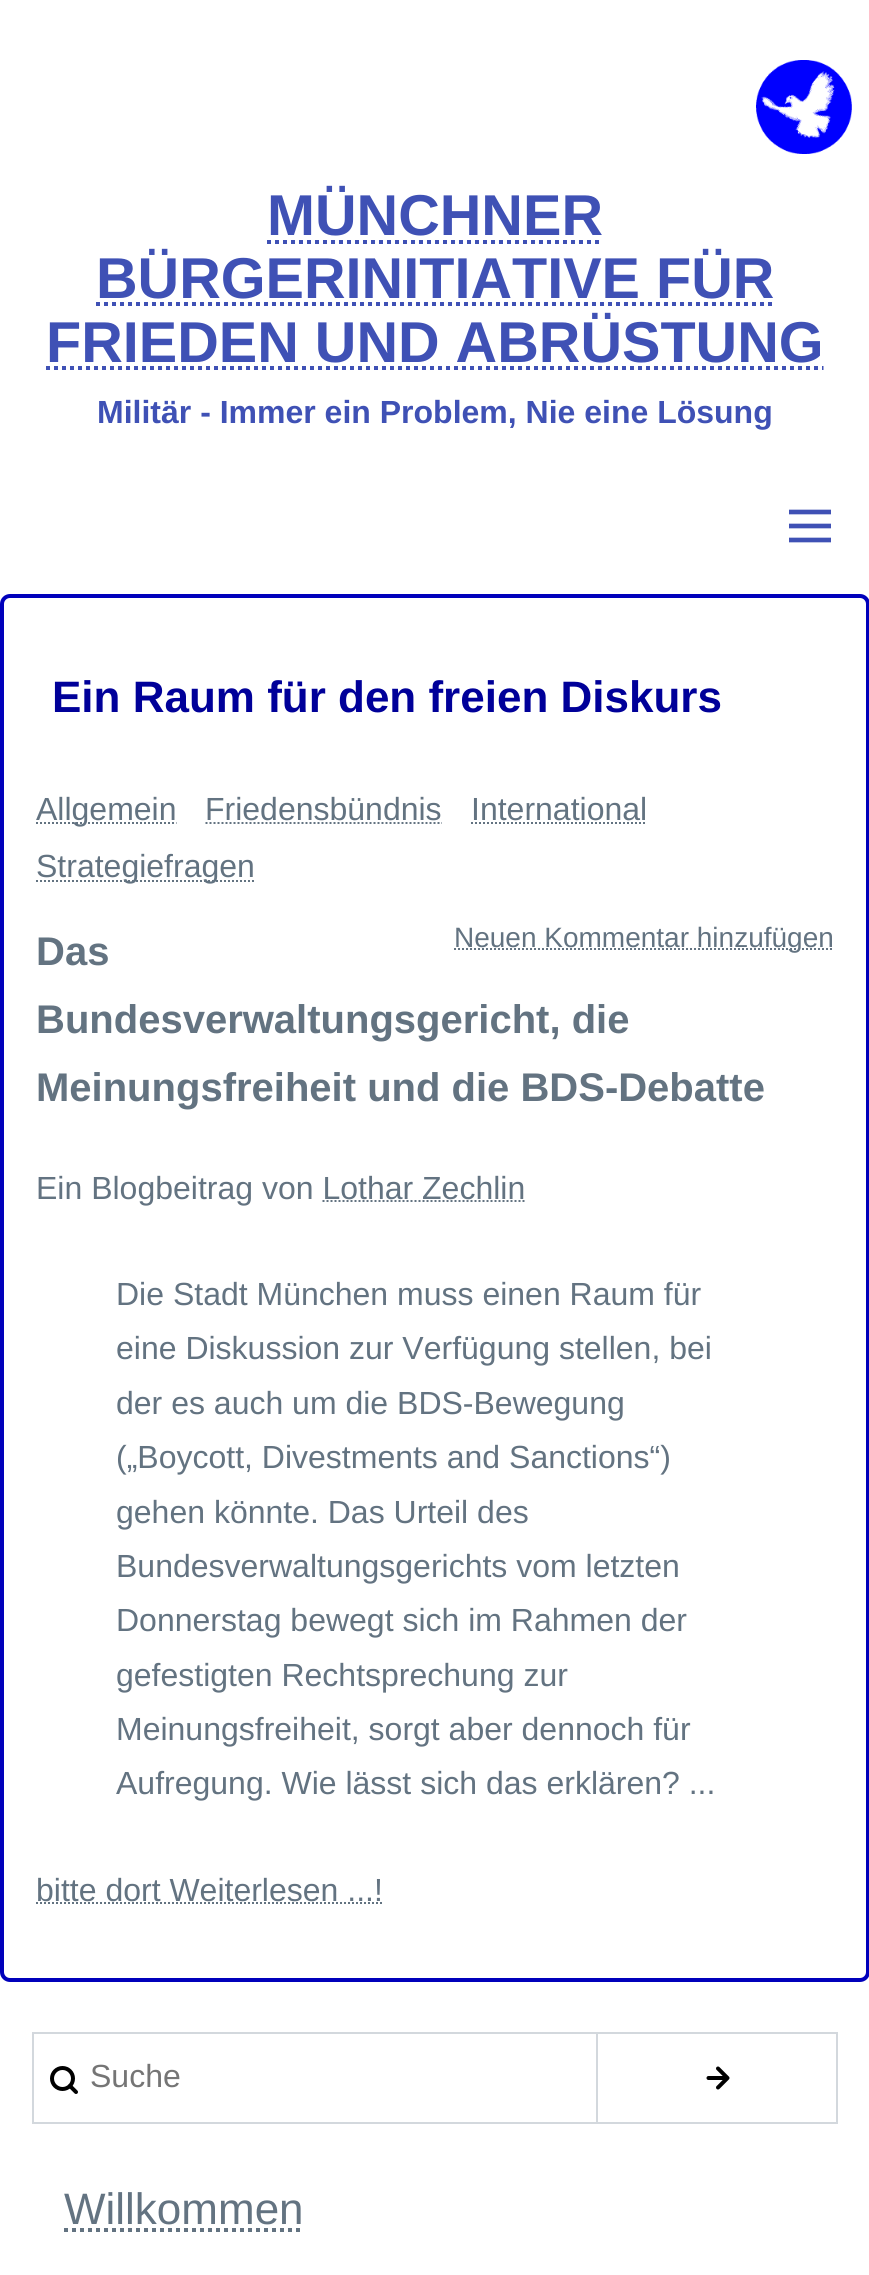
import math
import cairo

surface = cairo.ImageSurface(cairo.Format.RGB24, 869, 2275)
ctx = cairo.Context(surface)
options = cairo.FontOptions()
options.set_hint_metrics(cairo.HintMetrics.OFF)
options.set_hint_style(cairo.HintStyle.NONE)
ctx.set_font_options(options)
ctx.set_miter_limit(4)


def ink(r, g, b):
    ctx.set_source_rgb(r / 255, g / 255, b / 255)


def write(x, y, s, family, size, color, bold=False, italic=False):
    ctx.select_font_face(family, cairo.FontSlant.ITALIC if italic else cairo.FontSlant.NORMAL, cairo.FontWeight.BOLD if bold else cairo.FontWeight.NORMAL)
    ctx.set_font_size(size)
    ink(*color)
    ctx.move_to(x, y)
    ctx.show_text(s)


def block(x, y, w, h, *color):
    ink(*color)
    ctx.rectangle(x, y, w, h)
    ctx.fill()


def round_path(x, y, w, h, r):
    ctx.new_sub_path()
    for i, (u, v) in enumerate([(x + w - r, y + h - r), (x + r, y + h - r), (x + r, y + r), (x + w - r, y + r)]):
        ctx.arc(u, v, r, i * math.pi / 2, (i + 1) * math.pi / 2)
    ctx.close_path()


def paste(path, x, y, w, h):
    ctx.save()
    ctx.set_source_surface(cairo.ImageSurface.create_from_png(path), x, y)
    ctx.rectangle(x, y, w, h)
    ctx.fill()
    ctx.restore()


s1 = dict(family="Liberation Sans", size=57.6, color=(63, 81, 181), bold=True)
s2 = dict(family="Liberation Sans", size=32, color=(63, 81, 181), bold=True)
s3 = dict(family="Liberation Sans", size=44, color=(0, 0, 153), bold=True)
s4 = dict(family="Liberation Sans", size=32, color=(99, 115, 129))
s5 = dict(family="Liberation Sans", size=28, color=(99, 115, 129))
s6 = dict(family="Liberation Sans", size=40, color=(99, 115, 129), bold=True)
s7 = dict(family="Liberation Sans", size=32, color=(117, 117, 117))
s8 = dict(family="Liberation Sans", size=44, color=(99, 115, 129))

ink(255, 255, 255)
ctx.paint()
paste("pic1.png", 756, 60, 96, 94)
write(267, 235, "MÜNCHNER", **s1)
ctx.new_path()
ctx.move_to(267, 242)
ctx.line_to(603, 242)
ctx.set_line_width(4)
ctx.set_dash([4, 4])
ctx.stroke()
write(96, 298, "BÜRGERINITIATIVE FÜR", **s1)
ctx.new_path()
ctx.move_to(96, 304)
ctx.line_to(774, 304)
ctx.stroke()
write(46, 362, "FRIEDEN UND ABRÜSTUNG", **s1)
ctx.new_path()
ctx.move_to(46, 368)
ctx.line_to(823.5, 368)
ctx.stroke()
write(97, 423, "Militär - Immer ein Problem, Nie eine Lösung", **s2)
ctx.new_path()
ctx.move_to(789, 526)
ctx.line_to(831, 526)
ctx.move_to(789, 512)
ctx.line_to(831, 512)
ctx.move_to(789, 540)
ctx.line_to(831, 540)
ctx.set_line_width(4.7)
ctx.set_line_join(cairo.LineJoin.BEVEL)
ctx.set_dash([])
ctx.stroke()
round_path(2, 596, 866, 1384, 8)
ink(0, 0, 187)
ctx.set_line_width(4)
ctx.set_line_join(cairo.LineJoin.MITER)
ctx.stroke()
write(52, 712, "Ein Raum für den freien Diskurs", **s3)
ctx.new_path()
ctx.move_to(36, 823)
ctx.line_to(176.5, 823)
ink(99, 115, 129)
ctx.set_line_width(2)
ctx.set_dash([2, 2])
ctx.stroke()
write(36, 820, "Allgemein", **s4)
write(205, 820, "Friedensbündnis", **s4)
ctx.new_path()
ctx.move_to(205.5, 823)
ctx.line_to(442, 823)
ctx.stroke()
write(471, 820, "International", **s4)
ctx.new_path()
ctx.move_to(471, 823)
ctx.line_to(647, 823)
ctx.stroke()
ctx.new_path()
ctx.move_to(36, 881)
ctx.line_to(255, 881)
ctx.stroke()
write(36, 877, "Strategiefragen", **s4)
ctx.new_path()
ctx.move_to(454, 949)
ctx.line_to(834, 949)
ctx.stroke()
write(454, 947, "Neuen Kommentar hinzufügen", **s5)
write(36, 965, "Das", **s6)
write(36, 1033, "Bundesverwaltungsgericht, die", **s6)
write(36, 1101, "Meinungsfreiheit und die BDS-Debatte", **s6)
write(36, 1199, "Ein Blogbeitrag von Lothar Zechlin", **s4)
ctx.new_path()
ctx.move_to(322.5, 1201)
ctx.line_to(525, 1201)
ctx.stroke()
write(116, 1305, "Die Stadt München muss einen Raum für", **s4)
write(116, 1359, "eine Diskussion zur Verfügung stellen, bei", **s4)
write(116, 1414, "der es auch um die BDS-Bewegung", **s4)
write(116, 1468, "(„Boycott, Divestments and Sanctions“)", **s4)
write(116, 1523, "gehen könnte. Das Urteil des", **s4)
write(116, 1577, "Bundesverwaltungsgerichts vom letzten", **s4)
write(116, 1631, "Donnerstag bewegt sich im Rahmen der", **s4)
write(116, 1686, "gefestigten Rechtsprechung zur", **s4)
write(116, 1740, "Meinungsfreiheit, sorgt aber dennoch für", **s4)
write(116, 1794, "Aufregung. Wie lässt sich das erklären? ...", **s4)
write(36, 1901, "bitte dort Weiterlesen ...!", **s4)
ctx.new_path()
ctx.move_to(36, 1903)
ctx.line_to(383, 1903)
ctx.stroke()
ctx.arc(62.5, 2078.5, 10.5, 0, 2 * math.pi)
ink(0, 0, 0)
ctx.set_line_width(4)
ctx.set_dash([])
ctx.stroke()
ctx.new_path()
ctx.move_to(76, 2092)
ctx.line_to(70, 2086)
ctx.set_line_cap(cairo.LineCap.ROUND)
ctx.set_line_join(cairo.LineJoin.ROUND)
ctx.stroke()
block(32, 2032, 564, 2, 211, 216, 221)
block(32, 2122, 564, 2, 211, 216, 221)
block(32, 2032, 2, 92, 211, 216, 221)
write(90, 2087, "Suche", **s7)
ctx.new_path()
ctx.move_to(708.5, 2078)
ctx.line_to(726, 2078)
ctx.move_to(718, 2068.5)
ctx.line_to(727.5, 2078)
ctx.line_to(718, 2087.5)
ink(0, 0, 0)
ctx.stroke()
ctx.rectangle(597, 2033, 240, 90)
ink(211, 216, 221)
ctx.set_line_width(2)
ctx.set_line_cap(cairo.LineCap.BUTT)
ctx.set_line_join(cairo.LineJoin.MITER)
ctx.stroke()
write(64, 2224, "Willkommen", **s8)
ctx.new_path()
ctx.move_to(64, 2230)
ctx.line_to(303.5, 2230)
ctx.set_line_width(4)
ctx.set_dash([4, 4])
ctx.stroke()
surface.write_to_png("screenshot.png")
